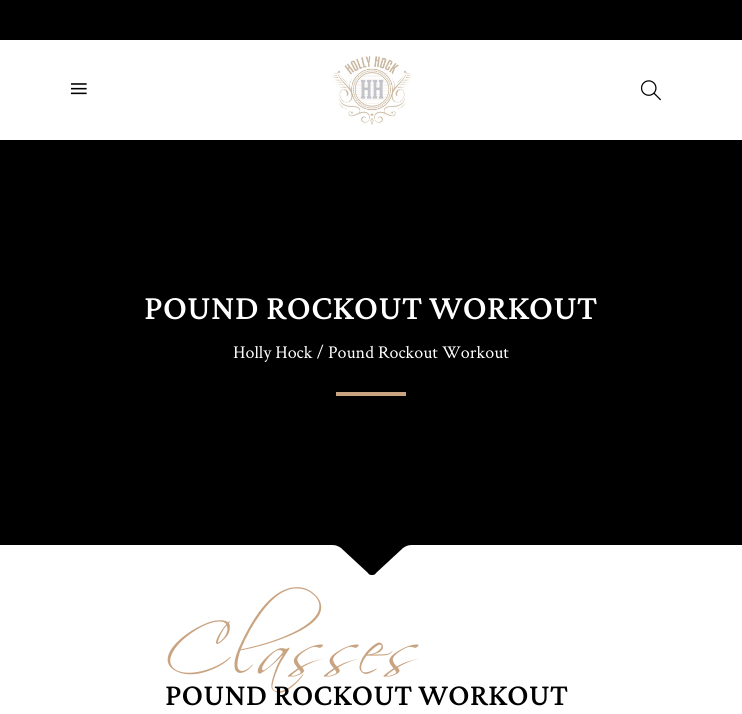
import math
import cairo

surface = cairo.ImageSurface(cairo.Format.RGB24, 742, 714)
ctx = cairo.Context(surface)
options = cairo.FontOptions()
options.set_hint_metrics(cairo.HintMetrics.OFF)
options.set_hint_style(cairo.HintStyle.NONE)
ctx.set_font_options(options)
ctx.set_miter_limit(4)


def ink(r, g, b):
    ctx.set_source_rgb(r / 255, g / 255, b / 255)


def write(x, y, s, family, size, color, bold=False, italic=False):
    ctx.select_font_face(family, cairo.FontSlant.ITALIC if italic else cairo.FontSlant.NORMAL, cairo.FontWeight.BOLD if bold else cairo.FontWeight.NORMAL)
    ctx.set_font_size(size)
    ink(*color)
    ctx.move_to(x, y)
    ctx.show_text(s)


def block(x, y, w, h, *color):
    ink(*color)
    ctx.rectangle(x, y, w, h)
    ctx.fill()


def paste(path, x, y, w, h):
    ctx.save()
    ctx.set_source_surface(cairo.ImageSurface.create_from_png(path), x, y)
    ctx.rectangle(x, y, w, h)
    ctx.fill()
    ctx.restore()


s1 = dict(family="Lateef", size=45, color=(255, 255, 255))
s2 = dict(family="Crimson Text", size=18, color=(255, 255, 255))
s3 = dict(family="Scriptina", size=72, color=(201, 164, 130))
s4 = dict(family="Lateef", size=40, color=(0, 0, 0))

ink(255, 255, 255)
ctx.paint()
block(0, 0, 742, 40, 0, 0, 0)
paste("pic1.png", 71, 83, 16, 12)
paste("pic2.png", 332, 56, 80, 69)
paste("pic3.png", 641, 80, 20, 21)
block(0, 140, 742, 435, 0, 0, 0)
write(144, 319, "POUND ROCKOUT WORKOUT", **s1)
write(233, 358, "Holly Hock / Pound Rockout Workout", **s2)
block(336, 392, 70, 4, 201, 164, 130)
block(0, 545, 332, 30, 255, 255, 255)
ctx.new_path()
ctx.move_to(412, 577)
ctx.line_to(412, 545)
ctx.curve_to(408, 545, 406, 546, 403, 548)
ctx.line_to(376, 573)
ctx.curve_to(375, 575, 373, 575, 372, 575)
ctx.curve_to(371, 575, 369, 575, 368, 573)
ctx.line_to(341, 548)
ctx.curve_to(338, 546, 336, 545, 332, 545)
ctx.line_to(332, 577)
ctx.close_path()
ctx.fill()
block(411, 545, 331, 30, 255, 255, 255)
write(165, 674, "Classes", **s3)
write(165, 705, "POUND ROCKOUT WORKOUT", **s4)
surface.write_to_png("screenshot.png")
